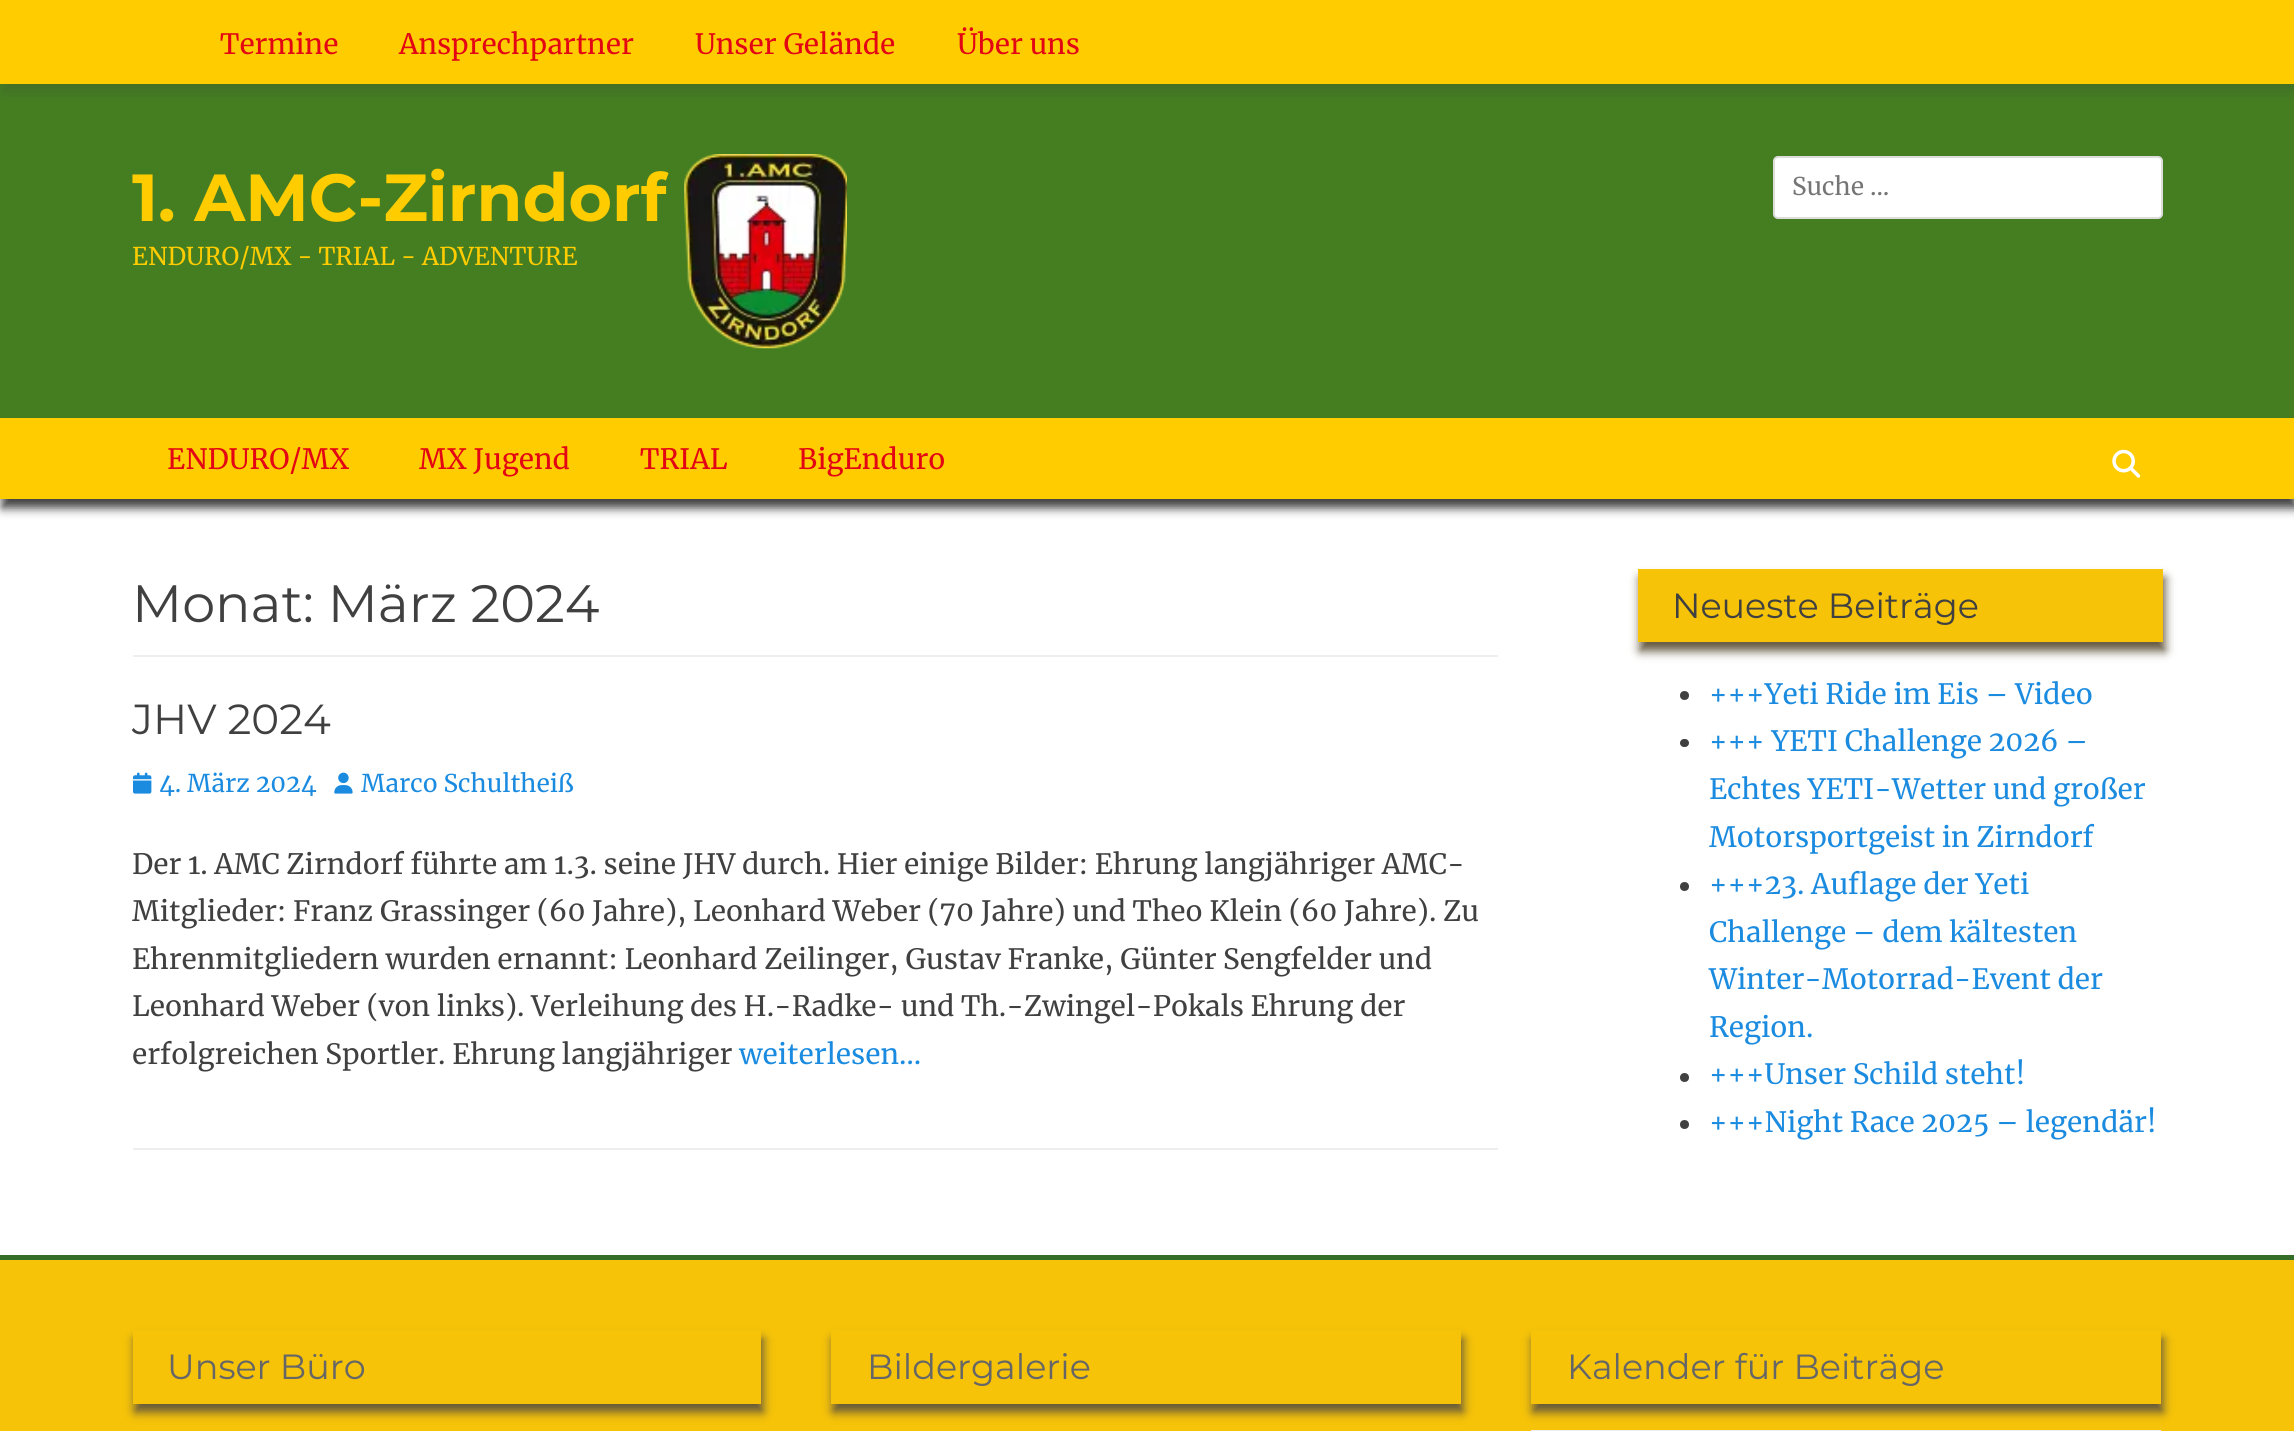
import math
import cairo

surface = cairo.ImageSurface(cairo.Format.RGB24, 2294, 1431)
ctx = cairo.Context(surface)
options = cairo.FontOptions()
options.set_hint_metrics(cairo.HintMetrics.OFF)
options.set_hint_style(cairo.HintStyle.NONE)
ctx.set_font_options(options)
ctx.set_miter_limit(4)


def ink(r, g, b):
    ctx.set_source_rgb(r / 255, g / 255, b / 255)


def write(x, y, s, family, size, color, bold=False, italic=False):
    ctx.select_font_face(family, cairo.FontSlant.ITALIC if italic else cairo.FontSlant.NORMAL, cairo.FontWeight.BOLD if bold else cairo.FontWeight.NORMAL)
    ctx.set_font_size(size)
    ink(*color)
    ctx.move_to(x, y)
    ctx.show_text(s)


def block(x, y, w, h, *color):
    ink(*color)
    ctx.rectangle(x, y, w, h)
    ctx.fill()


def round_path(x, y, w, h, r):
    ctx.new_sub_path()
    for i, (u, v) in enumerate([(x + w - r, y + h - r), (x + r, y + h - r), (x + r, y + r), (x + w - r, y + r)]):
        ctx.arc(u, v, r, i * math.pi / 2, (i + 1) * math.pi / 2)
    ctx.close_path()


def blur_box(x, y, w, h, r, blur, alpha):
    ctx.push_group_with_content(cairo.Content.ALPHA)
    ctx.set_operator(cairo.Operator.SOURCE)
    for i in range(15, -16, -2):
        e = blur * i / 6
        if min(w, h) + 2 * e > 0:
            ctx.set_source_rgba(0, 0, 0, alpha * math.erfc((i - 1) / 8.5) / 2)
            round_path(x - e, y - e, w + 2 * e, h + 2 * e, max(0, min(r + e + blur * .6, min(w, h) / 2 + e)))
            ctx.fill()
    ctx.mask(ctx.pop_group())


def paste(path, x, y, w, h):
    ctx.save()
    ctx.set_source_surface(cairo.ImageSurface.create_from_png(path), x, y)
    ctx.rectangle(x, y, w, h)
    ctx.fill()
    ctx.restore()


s1 = dict(family="Merriweather", size=28, color=(227, 5, 19))
s2 = dict(family="Montserrat", size=66.5, color=(255, 204, 0), bold=True)
s3 = dict(family="Merriweather", size=24.5, color=(255, 204, 0))
s4 = dict(family="Merriweather", size=24.5, color=(117, 117, 117))
s5 = dict(family="Montserrat", size=52.5, color=(64, 64, 64))
s6 = dict(family="Montserrat", size=42, color=(64, 64, 64))
s7 = dict(family="Merriweather", size=24.5, color=(27, 139, 224))
s8 = dict(family="Merriweather", size=28, color=(64, 64, 64))
s9 = dict(family="Merriweather", size=28, color=(27, 139, 224))
s10 = dict(family="Montserrat", size=35, color=(64, 64, 64))
s11 = dict(family="Montserrat", size=35, color=(102, 102, 102))

ink(68, 126, 33)
ctx.paint()
ink(67, 113, 39)
blur_box(2, 9, 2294, 84, 0, 5, 1)
block(0, 0, 2294, 84, 255, 204, 0)
write(220, 54, "Termine", **s1)
write(399, 54, "Ansprechpartner", **s1)
write(695, 54, "Unser Gelände", **s1)
write(957, 54, "Über uns", **s1)
write(132, 221, "1. AMC-Zirndorf", **s2)
write(132, 265, "ENDURO/MX - TRIAL - ADVENTURE", **s3)
paste("pic1.png", 684, 154, 163, 195)
ink(255, 255, 255)
round_path(1774, 157, 388, 61, 4)
ctx.fill_preserve()
ink(221, 221, 221)
ctx.stroke()
write(1792, 195, "Suche ...", **s4)
block(0, 499, 2294, 756, 255, 255, 255)
ink(63, 63, 63)
blur_box(2, 427, 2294, 81, 0, 5, 1)
block(0, 418, 2294, 81, 255, 204, 0)
write(167, 469, "ENDURO/MX", **s1)
write(419, 469, "MX Jugend", **s1)
write(640, 469, "TRIAL", **s1)
write(798, 469, "BigEnduro", **s1)
paste("pic2.png", 2112, 449, 29, 29)
block(133, 655, 1365, 2, 238, 238, 238)
write(132, 622, "Monat: März 2024", **s5)
block(133, 1148, 1365, 2, 238, 238, 238)
write(132, 734, "JHV 2024", **s6)
paste("pic3.png", 133, 772, 19, 22)
write(159, 792, "4. März 2024", **s7)
paste("pic4.png", 334, 772, 19, 22)
write(361, 792, "Marco Schultheiß", **s7)
write(132, 874, "Der 1. AMC Zirndorf führte am 1.3. seine JHV durch. Hier einige Bilder: Ehrung langjähriger AMC-", **s8)
write(132, 921, "Mitglieder: Franz Grassinger (60 Jahre), Leonhard Weber (70 Jahre) und Theo Klein (60 Jahre). Zu", **s8)
write(132, 969, "Ehrenmitgliedern wurden ernannt: Leonhard Zeilinger, Gustav Franke, Günter Sengfelder und", **s8)
write(132, 1016, "Leonhard Weber (von links). Verleihung des H.-Radke- und Th.-Zwingel-Pokals Ehrung der", **s8)
write(132, 1064, "erfolgreichen Sportler. Ehrung langjähriger", **s8)
write(739, 1064, "weiterlesen…", **s9)
ink(98, 86, 61)
blur_box(1640, 578, 525, 73, 0, 5, 1)
block(1638, 569, 525, 73, 246, 195, 8)
write(1672, 618, "Neueste Beiträge", **s10)
ctx.new_path()
ctx.arc(1684.5, 695.5, 4.5, 0, 2 * math.pi)
ctx.fill()
write(1709, 704, "+++Yeti Ride im Eis – Video", **s9)
ink(64, 64, 64)
round_path(1680, 739, 9, 8, 4)
ctx.fill()
write(1709, 751, "+++ YETI Challenge 2026 –", **s9)
write(1709, 799, "Echtes YETI-Wetter und großer", **s9)
write(1709, 847, "Motorsportgeist in Zirndorf", **s9)
ink(64, 64, 64)
ctx.new_path()
ctx.arc(1684.5, 886.5, 4.5, 0, 2 * math.pi)
ctx.fill()
write(1709, 894, "+++23. Auflage der Yeti", **s9)
write(1709, 942, "Challenge – dem kältesten", **s9)
write(1709, 989, "Winter-Motorrad-Event der", **s9)
write(1709, 1037, "Region.", **s9)
ink(64, 64, 64)
ctx.new_path()
ctx.arc(1684.5, 1077.5, 4.5, 0, 2 * math.pi)
ctx.fill()
write(1709, 1084, "+++Unser Schild steht!", **s9)
ink(64, 64, 64)
ctx.new_path()
ctx.arc(1684.5, 1124.5, 4.5, 0, 2 * math.pi)
ctx.fill()
write(1709, 1132, "+++Night Race 2025 – legendär!", **s9)
block(0, 1260, 2294, 171, 246, 195, 8)
block(0, 1255, 2294, 5, 52, 109, 40)
ink(98, 86, 61)
blur_box(135, 1339, 628, 73, 0, 5, 1)
block(133, 1330, 628, 74, 246, 195, 8)
write(167, 1379, "Unser Büro", **s11)
ink(98, 86, 61)
blur_box(833, 1339, 630, 73, 0, 5, 1)
block(831, 1330, 630, 74, 246, 195, 8)
write(867, 1379, "Bildergalerie", **s11)
ink(98, 86, 61)
blur_box(1533, 1339, 630, 73, 0, 5, 1)
block(1531, 1330, 630, 74, 246, 195, 8)
write(1567, 1379, "Kalender für Beiträge", **s11)
block(1531, 1430, 630, 1, 238, 238, 238)
surface.write_to_png("screenshot.png")
